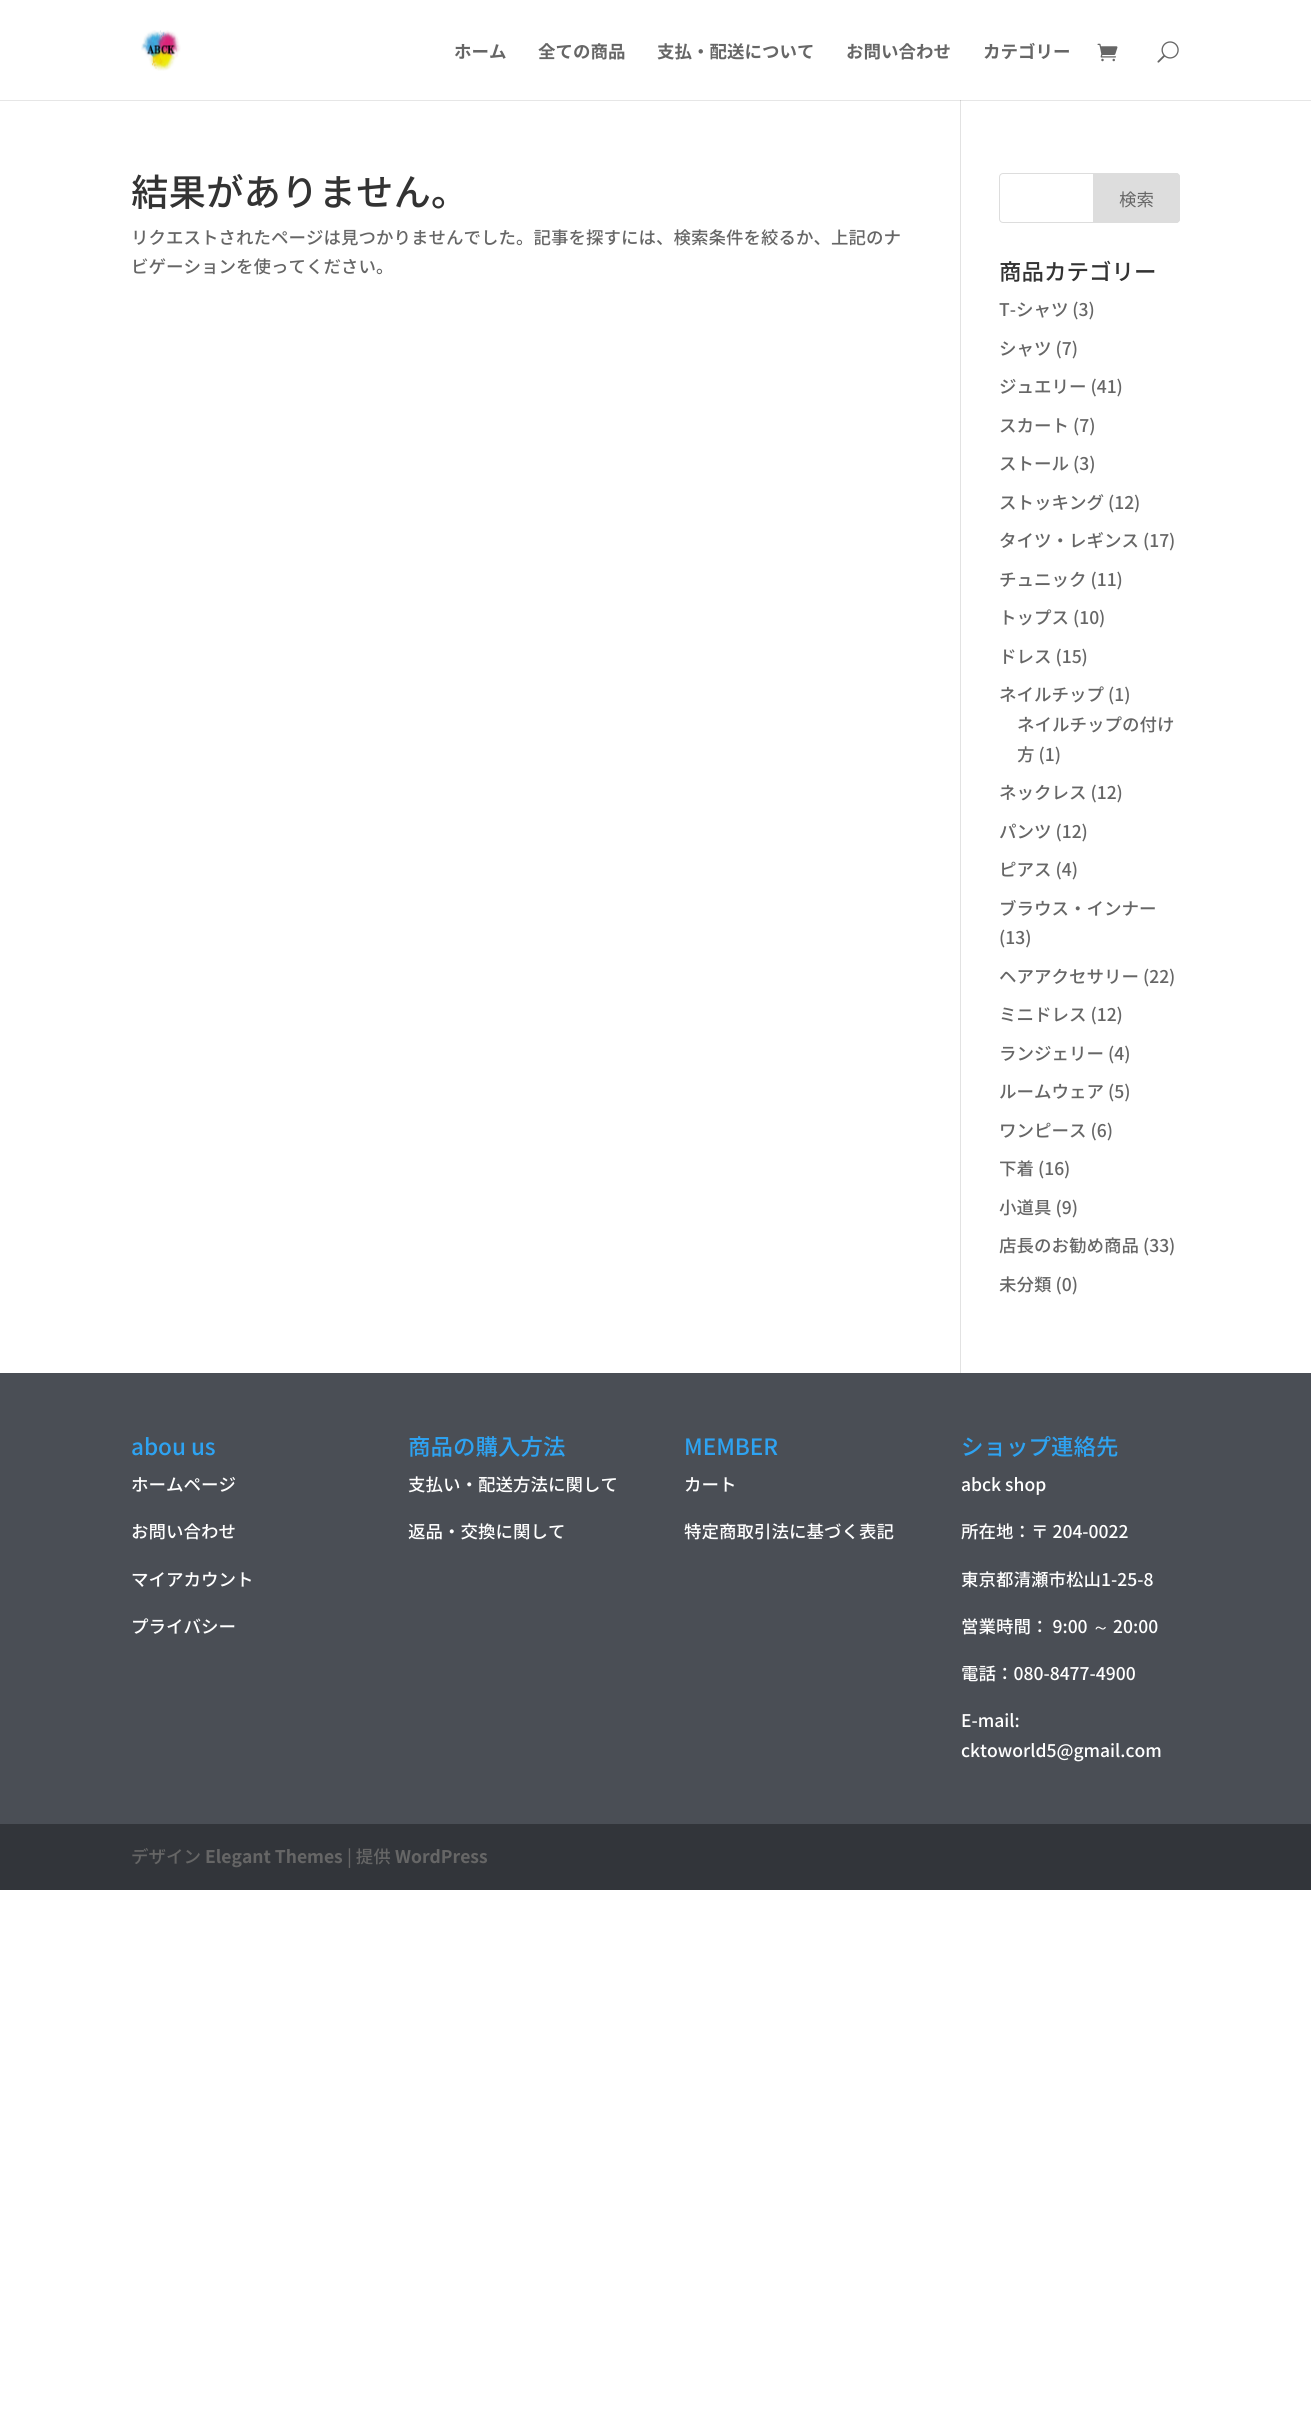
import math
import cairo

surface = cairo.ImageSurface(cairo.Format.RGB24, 1311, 2425)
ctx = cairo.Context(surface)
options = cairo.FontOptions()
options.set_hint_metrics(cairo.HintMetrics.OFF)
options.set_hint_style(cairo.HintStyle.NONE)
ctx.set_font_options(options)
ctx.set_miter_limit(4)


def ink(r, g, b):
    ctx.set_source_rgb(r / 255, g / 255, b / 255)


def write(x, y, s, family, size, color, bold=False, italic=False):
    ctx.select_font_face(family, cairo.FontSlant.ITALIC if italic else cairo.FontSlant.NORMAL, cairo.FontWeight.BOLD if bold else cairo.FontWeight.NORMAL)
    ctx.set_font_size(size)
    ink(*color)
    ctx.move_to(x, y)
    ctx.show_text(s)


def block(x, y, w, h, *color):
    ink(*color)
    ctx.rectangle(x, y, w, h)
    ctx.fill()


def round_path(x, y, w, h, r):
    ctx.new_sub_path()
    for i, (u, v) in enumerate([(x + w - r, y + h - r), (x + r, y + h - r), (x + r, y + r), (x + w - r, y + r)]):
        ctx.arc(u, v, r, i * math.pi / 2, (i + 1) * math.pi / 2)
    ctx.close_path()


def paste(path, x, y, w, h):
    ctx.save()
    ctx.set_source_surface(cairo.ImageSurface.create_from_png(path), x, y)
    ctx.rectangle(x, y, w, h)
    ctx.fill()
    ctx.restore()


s1 = dict(family="Noto Sans JP", size=17.5, color=(102, 102, 102), bold=True)
s2 = dict(family="Noto Sans JP Medium", size=37.5, color=(51, 51, 51))
s3 = dict(family="Noto Sans JP Medium", size=17.5, color=(102, 102, 102))
s4 = dict(family="Noto Sans JP", size=17.5, color=(102, 102, 102))
s5 = dict(family="Noto Sans JP Medium", size=22.5, color=(51, 51, 51))
s6 = dict(family="Noto Sans JP Medium", size=22.5, color=(46, 163, 242))
s7 = dict(family="Noto Sans JP Medium", size=17.5, color=(255, 255, 255))
s8 = dict(family="WenQuanYi Zen Hei Medium", size=17.5, color=(255, 255, 255))

ink(255, 255, 255)
ctx.paint()
block(0, 100, 1311, 1, 230, 230, 230)
paste("pic1.png", 141, 30, 40, 41)
write(454, 58, "ホーム", **s1)
write(538, 58, "全ての商品", **s1)
write(657, 58, "支払・配送について", **s1)
write(846, 58, "お問い合わせ", **s1)
write(983, 58, "カテゴリー", **s1)
paste("pic2.png", 1097, 43, 21, 19)
paste("pic3.png", 1157, 41, 22, 22)
block(960, 100, 1, 1273, 226, 226, 226)
block(960, 100, 1, 1, 203, 203, 203)
write(131, 206, "結果がありません。", **s2)
write(131, 244, "リクエストされたページは見つかりませんでした。記事を探すには、検索条件を絞るか、上記のナ", **s3)
write(131, 273, "ビゲーションを使ってください。", **s3)
round_path(999.5, 173.5, 180, 49, 3.5)
ink(221, 221, 221)
ctx.set_line_width(1)
ctx.stroke()
ctx.new_path()
ctx.move_to(1093.5, 173.5)
ctx.line_to(1176, 173.5)
ctx.curve_to(1178, 173.5, 1179.5, 175, 1179.5, 177)
ctx.line_to(1179.5, 219)
ctx.curve_to(1179.5, 221, 1178, 222.5, 1176, 222.5)
ctx.line_to(1093.5, 222.5)
ctx.close_path()
ctx.fill_preserve()
ctx.stroke()
write(1119, 206, "検索", **s4)
write(999, 280, "商品カテゴリー", **s5)
write(999, 316, "T-シャツ (3)", **s3)
write(999, 355, "シャツ (7)", **s3)
write(999, 393, "ジュエリー (41)", **s3)
write(999, 432, "スカート (7)", **s3)
write(999, 470, "ストール (3)", **s3)
write(999, 509, "ストッキング (12)", **s3)
write(999, 547, "タイツ・レギンス (17)", **s3)
write(999, 586, "チュニック (11)", **s3)
write(999, 624, "トップス (10)", **s3)
write(999, 663, "ドレス (15)", **s3)
write(999, 701, "ネイルチップ (1)", **s3)
write(1017, 731, "ネイルチップの付け", **s3)
write(1017, 761, "方 (1)", **s3)
write(999, 799, "ネックレス (12)", **s3)
write(999, 838, "パンツ (12)", **s3)
write(999, 876, "ピアス (4)", **s3)
write(999, 915, "ブラウス・インナー", **s3)
write(999, 944, "(13)", **s3)
write(999, 983, "ヘアアクセサリー (22)", **s3)
write(999, 1021, "ミニドレス (12)", **s3)
write(999, 1060, "ランジェリー (4)", **s3)
write(999, 1098, "ルームウェア (5)", **s3)
write(999, 1137, "ワンピース (6)", **s3)
write(999, 1175, "下着 (16)", **s3)
write(999, 1214, "小道具 (9)", **s3)
write(999, 1252, "店長のお勧め商品 (33)", **s3)
write(999, 1291, "未分類 (0)", **s3)
block(0, 1373, 1311, 451, 74, 78, 85)
write(131, 1455, "abou us", **s6)
write(131, 1491, "ホームページ", **s7)
write(131, 1538, "お問い合わせ", **s7)
write(131, 1586, "マイアカウント", **s7)
write(131, 1633, "プライバシー", **s7)
write(408, 1455, "商品の購入方法", **s6)
write(408, 1491, "支払い・配送方法に関して", **s7)
write(408, 1538, "返品・交換に関して", **s7)
write(684, 1455, "MEMBER", **s6)
write(684, 1491, "カート", **s7)
write(684, 1538, "特定商取引法に基づく表記", **s7)
write(961, 1455, "ショップ連絡先", **s6)
write(961, 1491, "abck shop", **s7)
write(961, 1538, "所在地：〒 204-0022", **s7)
write(961, 1586, "東京都清瀬市松山1-25-8", **s7)
write(961, 1633, "営業時間： 9:00", **s7)
write(1092, 1633, "～", **s8)
write(1113, 1633, "20:00", **s7)
write(961, 1680, "電話：080-8477-4900", **s7)
write(961, 1727, "E-mail:", **s7)
write(961, 1757, "cktoworld5@gmail.com", **s7)
block(0, 1824, 1311, 66, 50, 53, 58)
write(131, 1863, "デザイン", **s3)
write(205, 1863, "Elegant Themes", **s1)
write(347, 1863, "| 提供", **s3)
write(395, 1863, "WordPress", **s1)
surface.write_to_png("screenshot.png")
